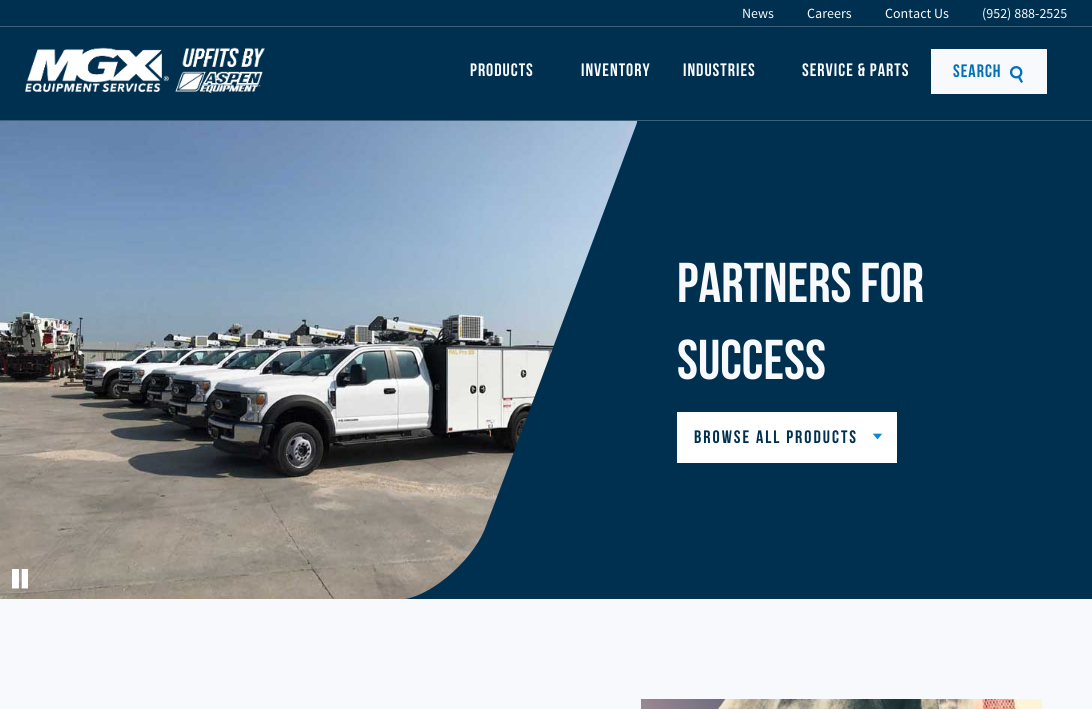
import math
import cairo

surface = cairo.ImageSurface(cairo.Format.RGB24, 1092, 709)
ctx = cairo.Context(surface)
options = cairo.FontOptions()
options.set_hint_metrics(cairo.HintMetrics.OFF)
options.set_hint_style(cairo.HintStyle.NONE)
ctx.set_font_options(options)
ctx.set_miter_limit(4)


def ink(r, g, b):
    ctx.set_source_rgb(r / 255, g / 255, b / 255)


def write(x, y, s, family, size, color, bold=False, italic=False):
    ctx.select_font_face(family, cairo.FontSlant.ITALIC if italic else cairo.FontSlant.NORMAL, cairo.FontWeight.BOLD if bold else cairo.FontWeight.NORMAL)
    ctx.set_font_size(size)
    ink(*color)
    ctx.move_to(x, y)
    ctx.show_text(s)


def write_spaced(x, y, s, letter, word):
    ctx.move_to(x, y)
    for ch in s:
        ctx.show_text(ch)
        ctx.rel_move_to(letter + word * (ch == ' '), 0)


def block(x, y, w, h, *color):
    ink(*color)
    ctx.rectangle(x, y, w, h)
    ctx.fill()


def paste(path, x, y, w, h):
    ctx.save()
    ctx.set_source_surface(cairo.ImageSurface.create_from_png(path), x, y)
    ctx.rectangle(x, y, w, h)
    ctx.fill()
    ctx.restore()


s1 = dict(family="Source Sans Pro", size=14, color=(248, 249, 252))
s2 = dict(family="Bebas Neue", size=56, color=(248, 249, 252), bold=True)

ink(248, 249, 252)
ctx.paint()
block(0, 0, 1092, 120, 0, 48, 80)
block(0, 120, 1092, 1, 62, 98, 123)
block(0, 26, 1092, 1, 62, 98, 123)
write(742, 18, "News", **s1)
write(807, 18, "Careers", **s1)
write(885, 18, "Contact Us", **s1)
write(982, 18, "(952) 888-2525", **s1)
paste("pic1.png", 25, 47, 240, 46)
ctx.select_font_face("Bebas Neue", cairo.FontSlant.NORMAL, cairo.FontWeight.BOLD)
ctx.set_font_size(18)
write_spaced(470, 76, "Products", 1, 0)
write_spaced(581, 76, "Inventory", 1, 0)
write_spaced(683, 76, "Industries", 1, 0)
write_spaced(802, 76, "Service & Parts", 1, 0)
block(931, 49, 116, 45, 248, 249, 252)
ink(0, 113, 185)
write_spaced(953, 77, "Search", 1, 0)
paste("pic2.png", 1009, 66, 14, 17)
block(637, 121, 455, 478, 0, 48, 80)
paste("pic3.png", 0, 121, 637, 478)
paste("pic4.png", 12, 569, 16, 20)
ctx.save()
ctx.rectangle(396, 121, 241, 478)
ctx.clip()
ctx.new_path()
ctx.move_to(396, 600)
ctx.line_to(638, 600)
ctx.line_to(638, 120)
ctx.curve_to(638, 120, 496, 501, 484, 531)
ctx.curve_to(471, 561, 429, 600, 396, 600)
ctx.close_path()
ctx.fill()
ctx.restore()
write(677, 302, "Partners for", **s2)
write(677, 379, "Success", **s2)
block(677, 412, 220, 51, 255, 255, 255)
paste("pic5.png", 873, 433, 9, 7)
ctx.set_font_size(18)
ink(0, 48, 80)
write_spaced(694, 443, "Browse All Products", 2, 0)
paste("pic6.png", 641, 699, 401, 10)
surface.write_to_png("screenshot.png")
